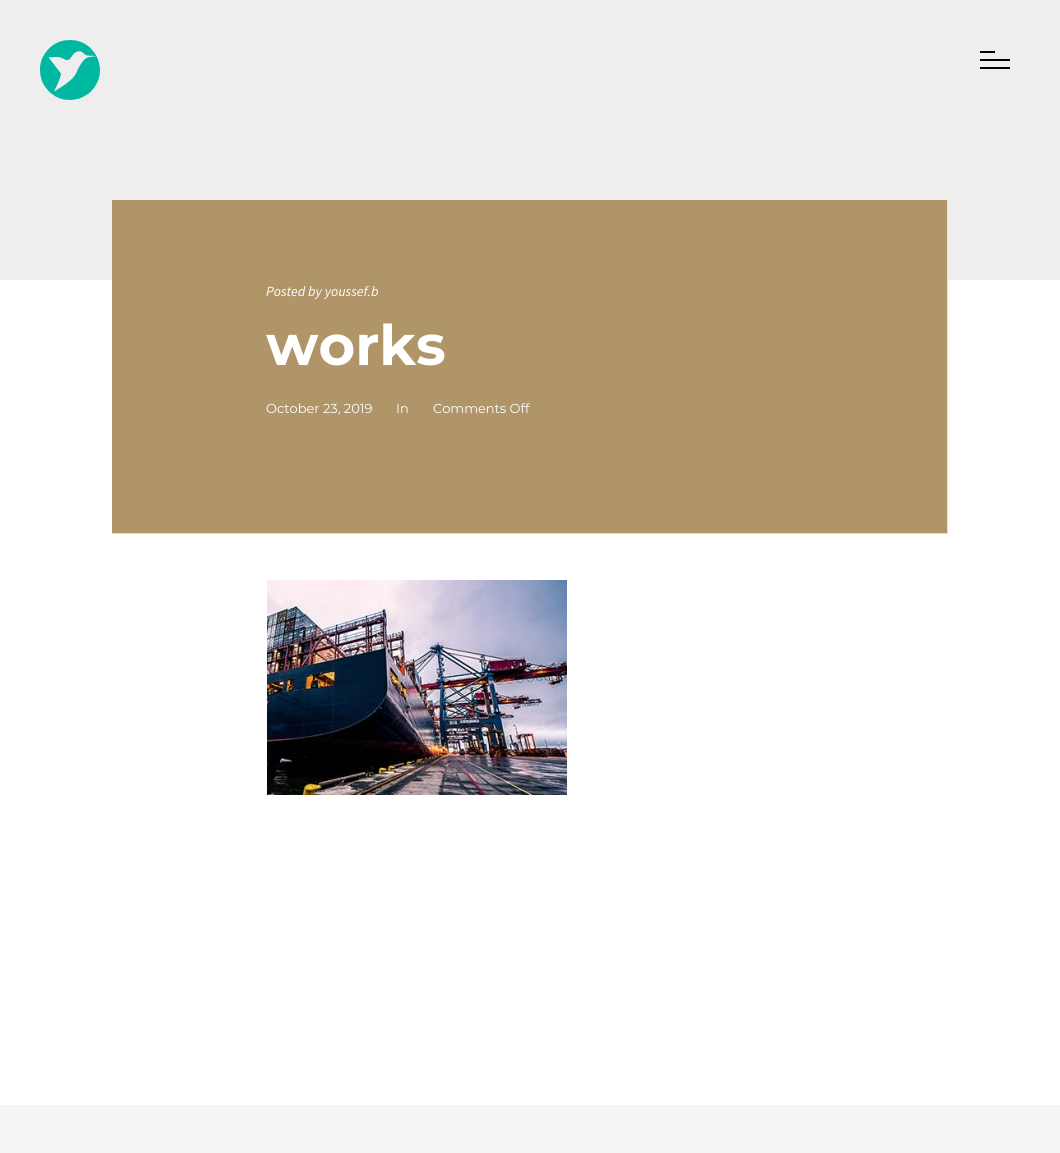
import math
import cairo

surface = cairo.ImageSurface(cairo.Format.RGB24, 1060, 1153)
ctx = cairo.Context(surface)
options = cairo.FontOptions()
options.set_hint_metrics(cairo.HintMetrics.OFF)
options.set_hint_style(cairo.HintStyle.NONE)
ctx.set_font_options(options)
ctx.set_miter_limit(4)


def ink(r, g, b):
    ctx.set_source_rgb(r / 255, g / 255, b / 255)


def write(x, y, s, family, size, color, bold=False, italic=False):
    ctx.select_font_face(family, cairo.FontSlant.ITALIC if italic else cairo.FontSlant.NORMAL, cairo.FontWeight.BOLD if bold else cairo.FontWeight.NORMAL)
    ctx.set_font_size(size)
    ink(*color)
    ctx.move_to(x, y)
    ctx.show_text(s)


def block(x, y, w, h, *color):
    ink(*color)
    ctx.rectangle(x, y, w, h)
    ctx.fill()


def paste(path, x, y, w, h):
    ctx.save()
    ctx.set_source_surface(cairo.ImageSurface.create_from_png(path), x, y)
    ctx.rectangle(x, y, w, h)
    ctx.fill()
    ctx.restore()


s1 = dict(family="Source Sans Pro", size=14, color=(255, 255, 255), italic=True)
s2 = dict(family="Montserrat", size=56, color=(255, 255, 255), bold=True)
s3 = dict(family="Montserrat", size=13, color=(255, 255, 255))

ink(255, 255, 255)
ctx.paint()
block(0, 0, 1060, 280, 238, 238, 238)
paste("pic1.png", 40, 40, 60, 60)
block(980, 51, 15, 2, 0, 0, 0)
block(980, 59, 30, 2, 0, 0, 0)
block(980, 67, 30, 2, 0, 0, 0)
block(112, 200, 835, 333, 175, 149, 104)
block(947, 200, 1, 334, 224, 224, 224)
block(112, 533, 836, 1, 224, 224, 224)
write(266, 296, "Posted by youssef.b", **s1)
write(266, 365, "works", **s2)
write(266, 413, "October 23, 2019", **s3)
write(396, 413, "In", **s3)
write(433, 413, "Comments Off", **s3)
paste("pic2.png", 267, 580, 300, 215)
block(0, 1105, 1060, 48, 245, 245, 245)
surface.write_to_png("screenshot.png")
